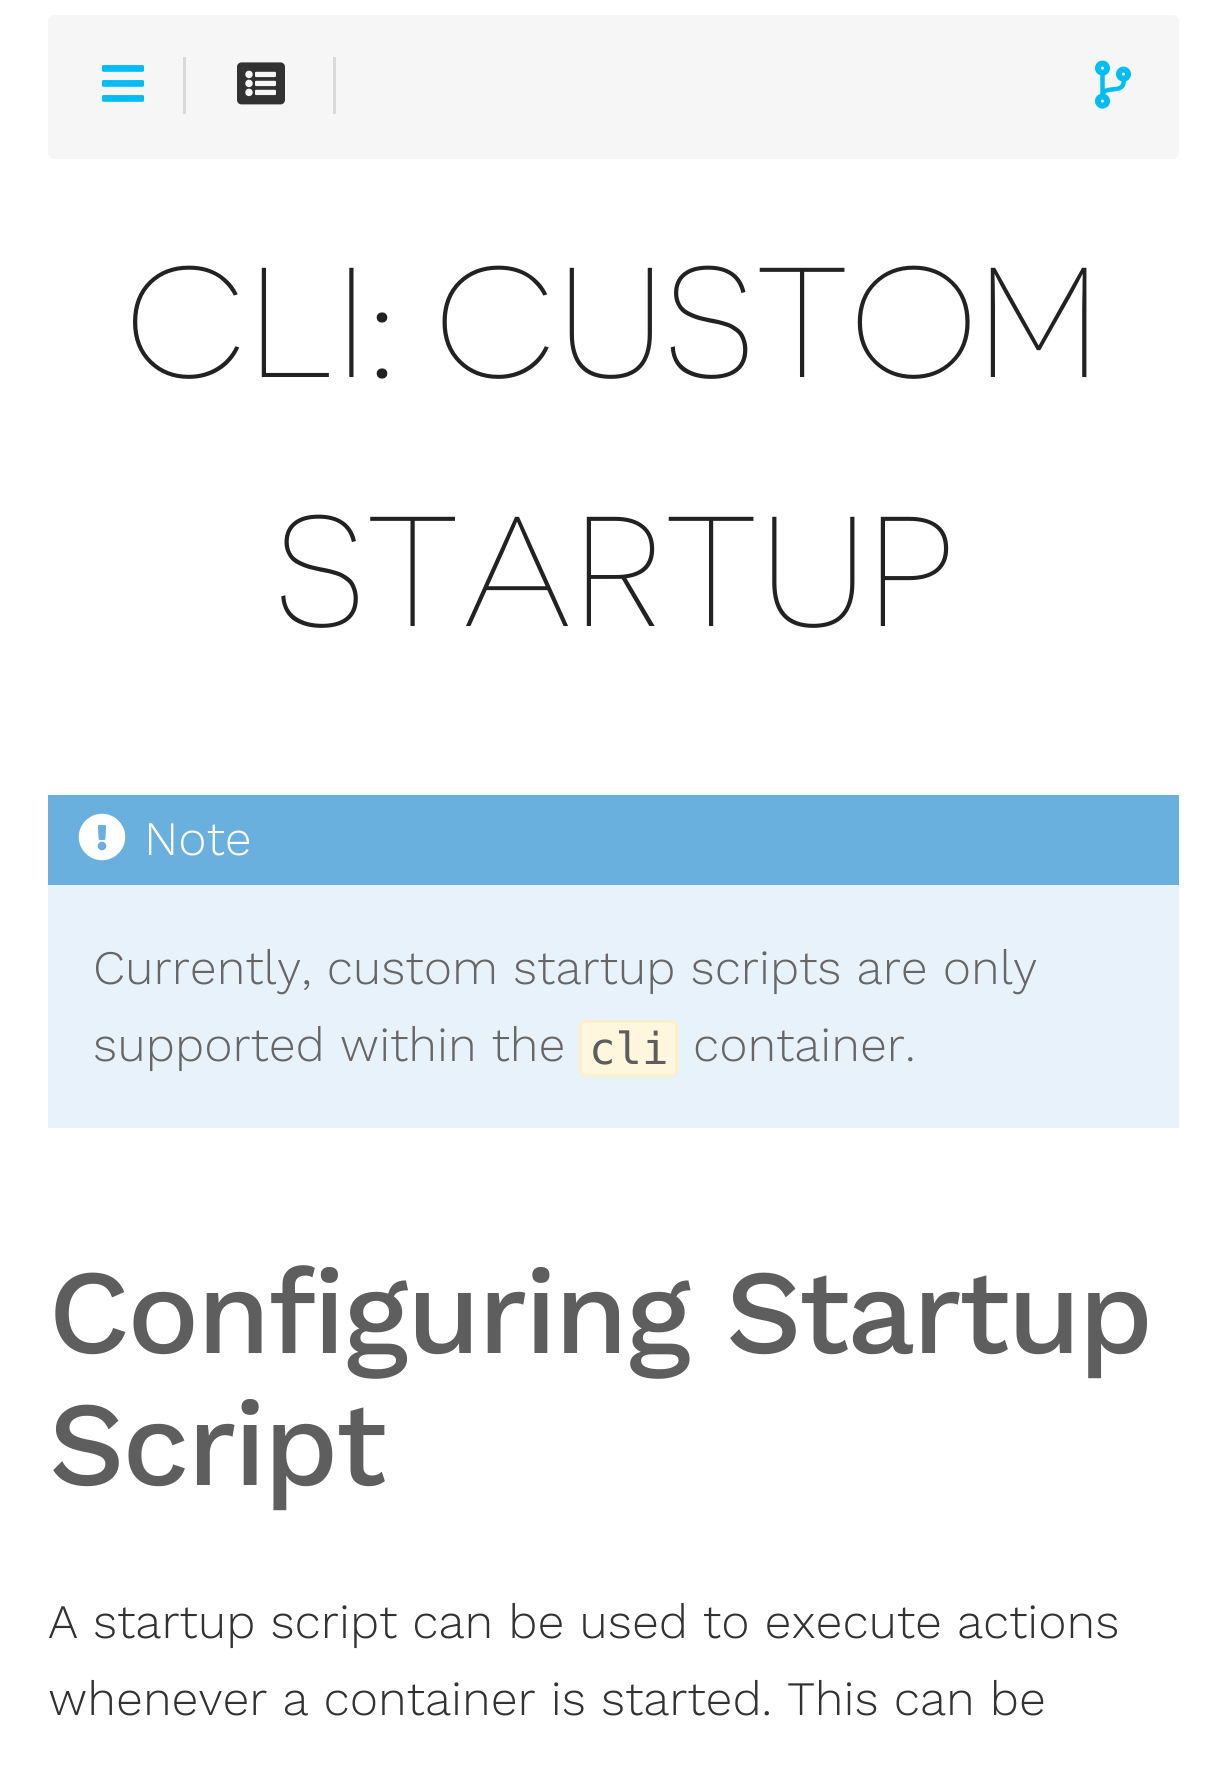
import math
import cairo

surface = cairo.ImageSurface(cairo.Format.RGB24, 1227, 1776)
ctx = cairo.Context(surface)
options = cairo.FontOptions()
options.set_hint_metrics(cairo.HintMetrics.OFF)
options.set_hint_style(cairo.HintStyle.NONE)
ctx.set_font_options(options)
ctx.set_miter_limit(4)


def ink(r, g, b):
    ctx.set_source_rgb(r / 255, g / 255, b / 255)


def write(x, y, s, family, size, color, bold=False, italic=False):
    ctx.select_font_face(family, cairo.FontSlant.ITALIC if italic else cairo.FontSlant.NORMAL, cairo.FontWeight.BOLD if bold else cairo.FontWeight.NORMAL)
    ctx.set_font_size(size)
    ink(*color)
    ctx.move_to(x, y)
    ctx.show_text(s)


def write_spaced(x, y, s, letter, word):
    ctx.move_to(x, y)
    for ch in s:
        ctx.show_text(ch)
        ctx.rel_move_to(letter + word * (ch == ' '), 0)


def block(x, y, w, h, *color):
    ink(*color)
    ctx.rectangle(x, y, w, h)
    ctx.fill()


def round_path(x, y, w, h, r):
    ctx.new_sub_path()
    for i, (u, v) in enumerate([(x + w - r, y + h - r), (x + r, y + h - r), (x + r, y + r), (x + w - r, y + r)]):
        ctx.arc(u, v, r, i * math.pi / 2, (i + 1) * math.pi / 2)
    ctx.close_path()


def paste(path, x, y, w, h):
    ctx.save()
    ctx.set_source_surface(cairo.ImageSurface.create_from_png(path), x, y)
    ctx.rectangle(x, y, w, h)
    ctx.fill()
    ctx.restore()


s1 = dict(family="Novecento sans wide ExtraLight", size=156, color=(34, 34, 34))
s2 = dict(family="Work Sans Light", size=48, color=(255, 255, 255))
s3 = dict(family="Work Sans Light", size=48, color=(102, 102, 102))
s4 = dict(family="DejaVu Sans Mono", size=44, color=(94, 94, 94))
s5 = dict(family="Work Sans Light", size=48, color=(50, 50, 50))

ink(255, 255, 255)
ctx.paint()
ink(246, 246, 246)
round_path(48, 15, 1131, 144, 6)
ctx.fill()
block(183, 57, 3, 57, 218, 216, 216)
paste("pic1.png", 102, 65, 42, 37)
block(333, 57, 3, 57, 218, 216, 216)
paste("pic2.png", 237, 62, 48, 43)
paste("pic3.png", 1095, 60, 36, 49)
write(126, 377, "CLI: CUSTOM", **s1)
write(275, 626, "STARTUP", **s1)
block(48, 885, 1131, 243, 231, 242, 250)
block(48, 795, 1131, 90, 106, 176, 222)
paste("pic4.png", 78, 813, 48, 48)
write(144, 855, "Note", **s2)
write(93, 984, "Currently, custom startup scripts are only", **s3)
write(93, 1061, "supported within the", **s3)
ink(255, 247, 221)
round_path(580.5, 1021.5, 96, 54, 4.5)
ctx.fill_preserve()
ink(251, 240, 203)
ctx.set_line_width(3)
ctx.stroke()
write(589, 1064, "cli", **s4)
write(693, 1061, "container.", **s3)
ctx.select_font_face("Work Sans Medium")
ctx.set_font_size(120)
ink(94, 94, 94)
write_spaced(48, 1353, "Configuring Startup", -3, 0)
write_spaced(48, 1485, "Script", -3, 0)
write(48, 1638, "A startup script can be used to execute actions", **s5)
write(48, 1715, "whenever a container is started. This can be", **s5)
surface.write_to_png("screenshot.png")
